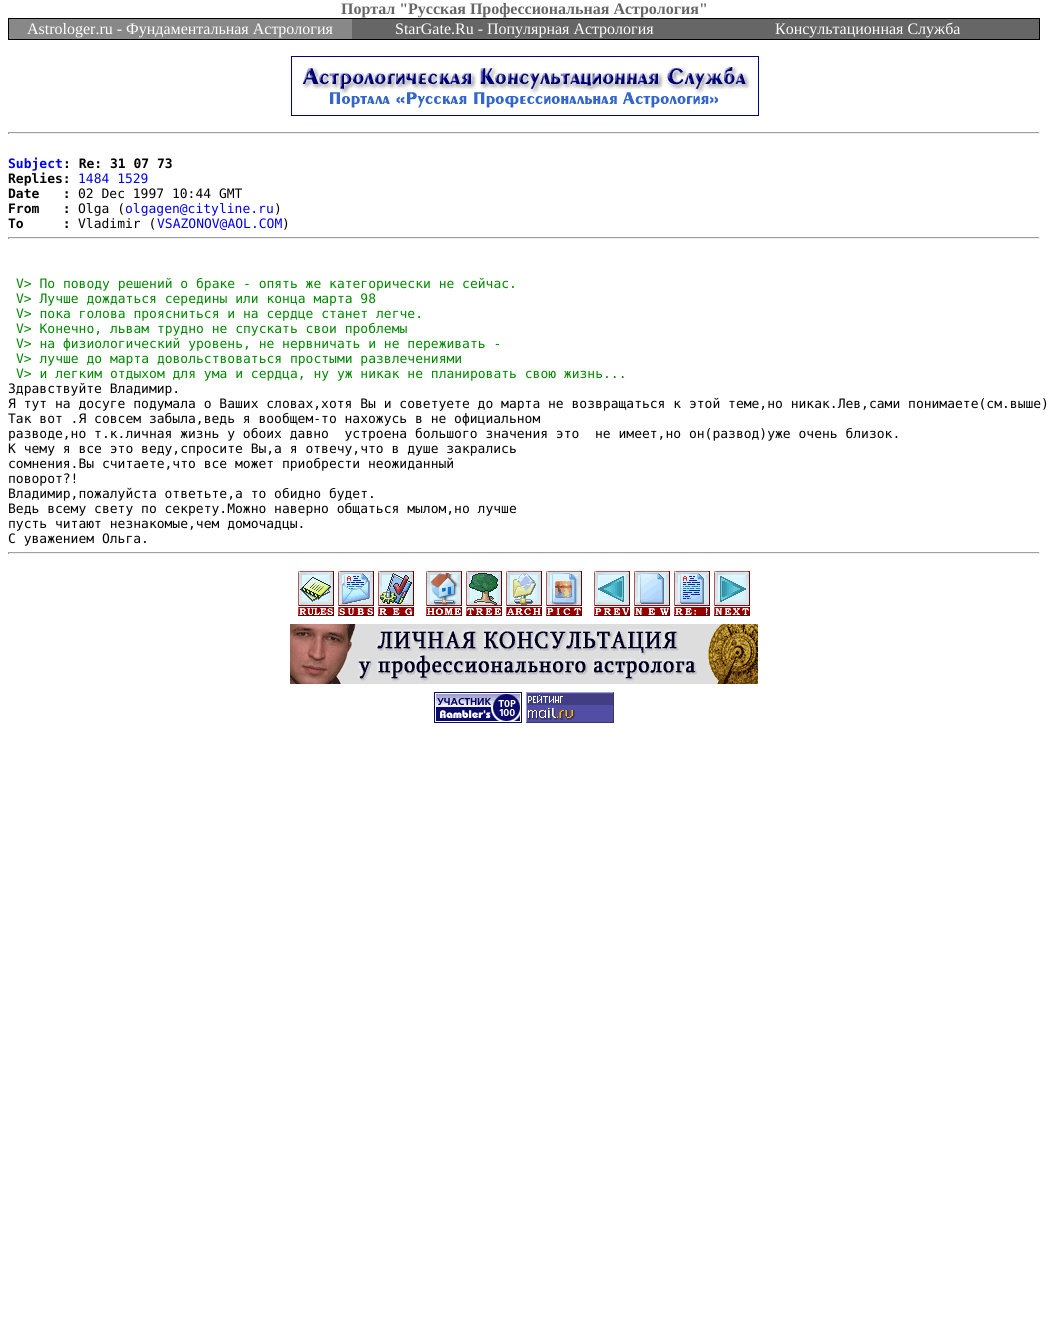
import math
import cairo

surface = cairo.ImageSurface(cairo.Format.RGB24, 1048, 1319)
ctx = cairo.Context(surface)
options = cairo.FontOptions()
options.set_hint_metrics(cairo.HintMetrics.OFF)
options.set_hint_style(cairo.HintStyle.NONE)
ctx.set_font_options(options)
ctx.set_miter_limit(4)


def ink(r, g, b):
    ctx.set_source_rgb(r / 255, g / 255, b / 255)


def write(x, y, s, family, size, color, bold=False, italic=False):
    ctx.select_font_face(family, cairo.FontSlant.ITALIC if italic else cairo.FontSlant.NORMAL, cairo.FontWeight.BOLD if bold else cairo.FontWeight.NORMAL)
    ctx.set_font_size(size)
    ink(*color)
    ctx.move_to(x, y)
    ctx.show_text(s)


def block(x, y, w, h, *color):
    ink(*color)
    ctx.rectangle(x, y, w, h)
    ctx.fill()


def paste(path, x, y, w, h):
    ctx.save()
    ctx.set_source_surface(cairo.ImageSurface.create_from_png(path), x, y)
    ctx.rectangle(x, y, w, h)
    ctx.fill()
    ctx.restore()


s1 = dict(family="Liberation Serif", size=16, color=(102, 102, 102), bold=True)
s2 = dict(family="Liberation Serif", size=16, color=(255, 255, 255))
s3 = dict(family="DejaVu Sans Mono", size=13, color=(0, 0, 238), bold=True)
s4 = dict(family="DejaVu Sans Mono", size=13, color=(0, 0, 0), bold=True)
s5 = dict(family="DejaVu Sans Mono", size=13, color=(0, 0, 238))
s6 = dict(family="DejaVu Sans Mono", size=13, color=(0, 0, 0))
s7 = dict(family="DejaVu Sans Mono", size=13, color=(0, 136, 0))

ink(255, 255, 255)
ctx.paint()
write(341, 14, "Портал \"Русская Профессиональная Астрология\"", **s1)
block(8, 18, 1032, 22, 0, 0, 0)
block(352, 19, 687, 20, 102, 102, 102)
block(9, 19, 343, 20, 136, 136, 136)
write(27, 34, "Astrologer.ru - Фундаментальная Астрология", **s2)
write(395, 34, "StarGate.Ru - Популярная Астрология", **s2)
write(775, 34, "Консультационная Служба", **s2)
paste("pic1.png", 291, 56, 468, 60)
block(8, 132, 1032, 1, 159, 159, 159)
block(1039, 132, 1, 2, 238, 238, 238)
block(8, 133, 1032, 1, 238, 238, 238)
block(8, 132, 1, 2, 159, 159, 159)
write(8, 168, "Subject", **s3)
write(63, 168, ": Re: 31 07 73", **s4)
write(8, 183, "Replies:", **s4)
write(78, 183, "1484 1529", **s5)
write(8, 198, "Date   :", **s4)
write(78, 198, "02 Dec 1997 10:44 GMT", **s6)
write(8, 213, "From   :", **s4)
write(78, 213, "Olga (", **s6)
write(125, 213, "olgagen@cityline.ru", **s5)
write(274, 213, ")", **s6)
write(8, 228, "To     :", **s4)
write(78, 228, "Vladimir (", **s6)
write(157, 228, "VSAZONOV@AOL.COM", **s5)
write(282, 228, ")", **s6)
block(8, 237, 1032, 1, 159, 159, 159)
block(1039, 237, 1, 2, 238, 238, 238)
block(8, 238, 1032, 1, 238, 238, 238)
block(8, 237, 1, 2, 159, 159, 159)
write(16, 288, "V> По поводу решений о браке - опять же категорически не сейчас.", **s7)
write(16, 303, "V> Лучше дождаться середины или конца марта 98", **s7)
write(16, 318, "V> пока голова проясниться и на сердце станет легче.", **s7)
write(16, 333, "V> Конечно, львам трудно не спускать свои проблемы", **s7)
write(16, 348, "V> на физиологический уровень, не нервничать и не переживать -", **s7)
write(16, 363, "V> лучше до марта довольствоваться простыми развлечениями", **s7)
write(16, 378, "V> и легким отдыхом для ума и сердца, ну уж никак не планировать свою жизнь...", **s7)
write(8, 393, "Здравствуйте Владимир.", **s6)
write(8, 408, "Я тут на досуге подумала о Ваших словах,хотя Вы и советуете до марта не возвращаться к этой теме,но никак.Лев,сами понимаете(см.выше)", **s6)
write(8, 423, "Так вот .Я совсем забыла,ведь я вообщем-то нахожусь в не официальном", **s6)
write(8, 438, "разводе,но т.к.личная жизнь у обоих давно  устроена большого значения это  не имеет,но он(развод)уже очень близок.", **s6)
write(8, 453, "К чему я все это веду,спросите Вы,а я отвечу,что в душе закрались", **s6)
write(8, 468, "сомнения.Вы считаете,что все может приобрести неожиданный", **s6)
write(8, 483, "поворот?!", **s6)
write(8, 498, "Владимир,пожалуйста ответьте,а то обидно будет.", **s6)
write(8, 513, "Ведь всему свету по секрету.Можно наверно общаться мылом,но лучше", **s6)
write(8, 528, "пусть читают незнакомые,чем домочадцы.", **s6)
write(8, 543, "С уважением Ольга.", **s6)
block(8, 552, 1032, 1, 159, 159, 159)
block(1039, 552, 1, 2, 238, 238, 238)
block(8, 553, 1032, 1, 238, 238, 238)
block(8, 552, 1, 2, 159, 159, 159)
paste("pic2.png", 298, 571, 36, 45)
paste("pic3.png", 338, 571, 36, 45)
paste("pic4.png", 378, 571, 36, 45)
paste("pic5.png", 426, 571, 36, 45)
paste("pic6.png", 466, 571, 36, 45)
paste("pic7.png", 506, 571, 36, 45)
paste("pic8.png", 546, 571, 36, 45)
paste("pic9.png", 594, 571, 36, 45)
paste("pic10.png", 634, 571, 36, 45)
paste("pic11.png", 674, 571, 36, 45)
paste("pic12.png", 714, 571, 36, 45)
paste("pic13.png", 290, 624, 468, 60)
paste("pic14.png", 434, 692, 88, 31)
paste("pic15.png", 526, 692, 88, 31)
surface.write_to_png("screenshot.png")
